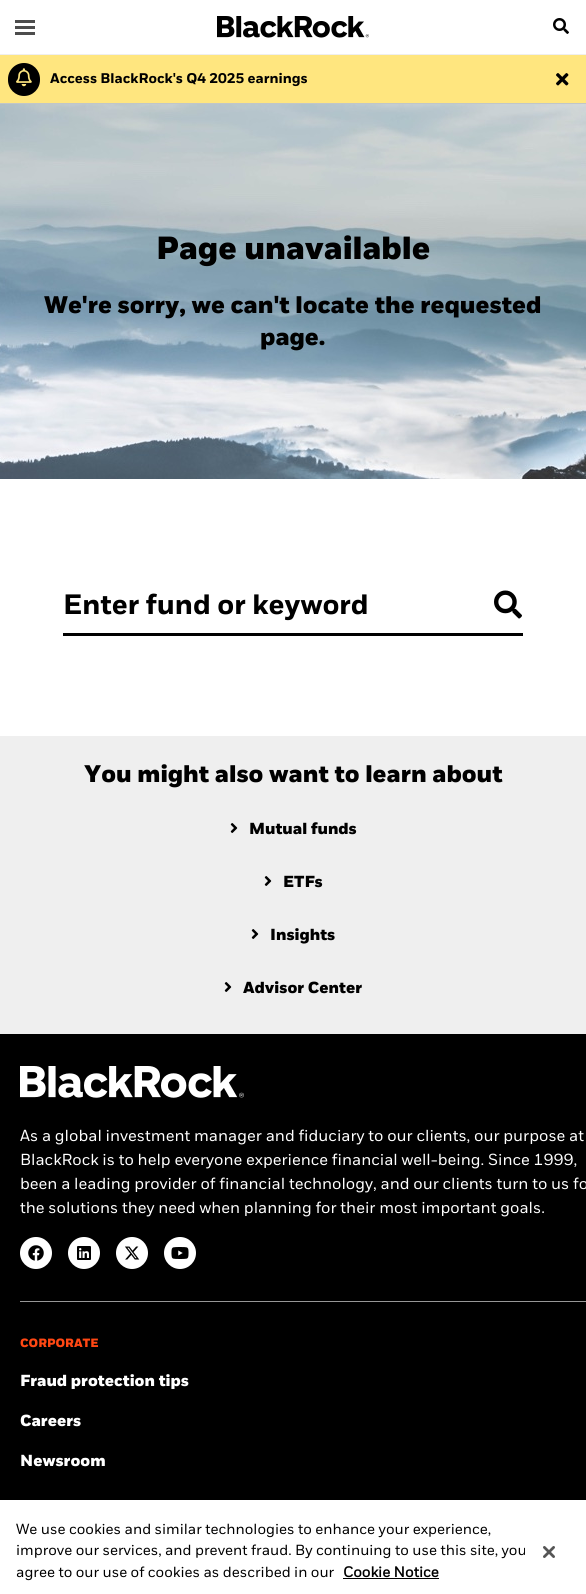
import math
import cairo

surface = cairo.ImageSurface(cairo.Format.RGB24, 586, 1594)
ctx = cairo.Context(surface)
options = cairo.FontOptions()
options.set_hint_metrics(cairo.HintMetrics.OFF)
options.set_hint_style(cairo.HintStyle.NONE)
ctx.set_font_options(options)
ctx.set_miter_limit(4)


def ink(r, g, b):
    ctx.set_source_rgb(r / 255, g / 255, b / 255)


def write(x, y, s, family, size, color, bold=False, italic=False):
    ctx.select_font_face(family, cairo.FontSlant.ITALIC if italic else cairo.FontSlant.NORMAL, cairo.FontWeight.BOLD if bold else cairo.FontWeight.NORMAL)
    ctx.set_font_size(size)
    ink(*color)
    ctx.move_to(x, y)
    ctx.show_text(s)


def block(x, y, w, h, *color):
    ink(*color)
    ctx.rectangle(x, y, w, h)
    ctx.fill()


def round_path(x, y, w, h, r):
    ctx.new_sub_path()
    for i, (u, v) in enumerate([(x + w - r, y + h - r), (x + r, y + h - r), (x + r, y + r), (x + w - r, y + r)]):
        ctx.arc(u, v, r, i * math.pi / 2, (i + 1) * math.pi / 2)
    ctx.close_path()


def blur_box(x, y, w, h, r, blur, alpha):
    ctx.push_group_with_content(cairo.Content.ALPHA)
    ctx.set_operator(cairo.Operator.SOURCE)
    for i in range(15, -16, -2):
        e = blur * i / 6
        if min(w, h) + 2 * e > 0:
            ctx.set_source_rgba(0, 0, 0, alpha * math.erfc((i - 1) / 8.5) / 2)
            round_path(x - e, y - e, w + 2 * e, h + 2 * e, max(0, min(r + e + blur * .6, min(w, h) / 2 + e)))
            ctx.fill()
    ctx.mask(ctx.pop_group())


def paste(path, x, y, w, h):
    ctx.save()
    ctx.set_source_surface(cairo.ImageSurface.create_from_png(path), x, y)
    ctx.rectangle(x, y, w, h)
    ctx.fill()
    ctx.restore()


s1 = dict(family="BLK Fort", size=14, color=(0, 0, 0), bold=True)
s2 = dict(family="BLK Fort ExtraBold", size=32, color=(0, 0, 0))
s3 = dict(family="BLK Fort ExtraBold", size=24, color=(0, 0, 0))
s4 = dict(family="BLK Fort", size=28, color=(0, 0, 0), bold=True)
s5 = dict(family="BLK Fort ExtraBold", size=16, color=(0, 0, 0))
s6 = dict(family="BLK Fort", size=16, color=(255, 255, 255))
s7 = dict(family="BLK Fort ExtraBold", size=12, color=(255, 71, 19))
s8 = dict(family="BLK Fort ExtraBold", size=16, color=(255, 255, 255))
s9 = dict(family="BLK Fort", size=14.65, color=(0, 0, 0))
s10 = dict(family="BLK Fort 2", size=14.65, color=(0, 0, 0), bold=True)

ink(255, 255, 255)
ctx.paint()
block(0, 54, 586, 1, 239, 239, 239)
block(15, 26, 20, 3, 77, 77, 77)
block(15, 20, 20, 3, 77, 77, 77)
block(15, 32, 20, 3, 77, 77, 77)
paste("pic1.png", 217, 16, 152, 22)
paste("pic2.png", 553, 18, 16, 16)
block(0, 55, 586, 48, 255, 230, 127)
ink(0, 0, 0)
round_path(8, 63, 32, 33, 16)
ctx.fill()
paste("pic3.png", 16, 68, 16, 19)
write(50, 83, "Access BlackRock's Q4 2025 earnings", **s1)
paste("pic4.png", 556, 73, 13, 13)
block(0, 103, 586, 1, 193, 198, 200)
paste("pic5.png", 0, 104, 586, 375)
write(156, 259, "Page unavailable", **s2)
write(44, 313, "We're sorry, we can't locate the requested", **s3)
write(260, 345, "page.", **s3)
block(63, 633, 460, 3, 0, 0, 0)
write(63, 614, "Enter fund or keyword", **s4)
paste("pic6.png", 494, 590, 28, 29)
block(0, 736, 586, 298, 239, 239, 239)
write(84, 782, "You might also want to learn about", **s3)
paste("pic7.png", 230, 823, 8, 10)
write(249, 834, "Mutual funds", **s5)
paste("pic7.png", 264, 876, 8, 10)
write(283, 887, "ETFs", **s5)
paste("pic7.png", 251, 929, 8, 10)
write(270, 940, "Insights", **s5)
paste("pic7.png", 224, 982, 8, 10)
write(243, 993, "Advisor Center", **s5)
block(0, 1034, 586, 466, 0, 0, 0)
paste("pic8.png", 20, 1066, 224, 32)
write(20, 1141, "As a global investment manager and fiduciary to our clients, our purpose at", **s6)
write(20, 1165, "BlackRock is to help everyone experience financial well-being. Since 1999,", **s6)
write(20, 1189, "been a leading provider of financial technology, and our clients turn to us fo", **s6)
write(20, 1213, "the solutions they need when planning for their most important goals.", **s6)
ctx.new_path()
ctx.arc(36, 1253, 16, 0, 2 * math.pi)
ctx.fill()
paste("pic9.png", 28, 1245, 16, 16)
ctx.arc(84, 1253, 16, 0, 2 * math.pi)
ctx.fill()
paste("pic10.png", 77, 1246, 14, 14)
ctx.arc(132, 1253, 16, 0, 2 * math.pi)
ctx.fill()
paste("pic11.png", 125, 1246, 15, 14)
ctx.arc(180, 1253, 16, 0, 2 * math.pi)
ctx.fill()
paste("pic12.png", 171, 1247, 18, 12)
block(20, 1301, 566, 1, 151, 151, 151)
write(20, 1347, "CORPORATE", **s7)
write(20, 1386, "Fraud protection tips", **s8)
write(20, 1426, "Careers", **s8)
write(20, 1466, "Newsroom", **s8)
ink(0, 0, 0)
blur_box(0, 1500, 586, 94, 0, 9, 0.2)
block(0, 1500, 586, 94, 255, 255, 255)
write(16, 1534, "We use cookies and similar technologies to enhance your experience,", **s9)
write(16, 1555, "improve our services, and prevent fraud. By continuing to use this site, you", **s9)
write(16, 1577, "agree to our use of cookies as described in our", **s9)
write(343, 1577, "Cookie Notice", **s10)
block(343, 1578, 96, 1, 0, 0, 0)
paste("pic13.png", 543, 1546, 12, 12)
surface.write_to_png("screenshot.png")
